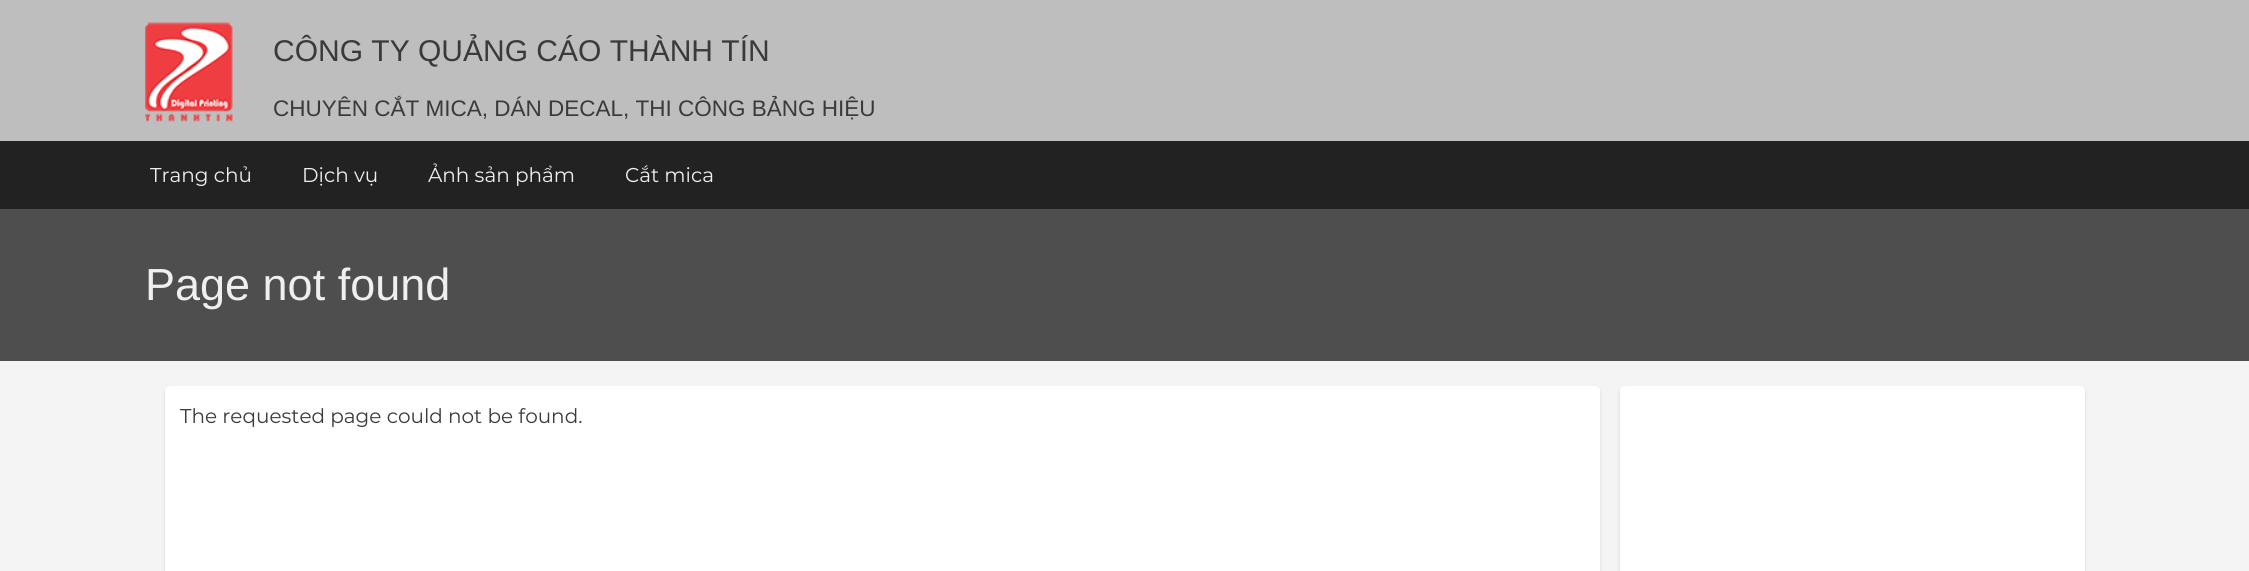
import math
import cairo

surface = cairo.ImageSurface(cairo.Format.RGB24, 2249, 571)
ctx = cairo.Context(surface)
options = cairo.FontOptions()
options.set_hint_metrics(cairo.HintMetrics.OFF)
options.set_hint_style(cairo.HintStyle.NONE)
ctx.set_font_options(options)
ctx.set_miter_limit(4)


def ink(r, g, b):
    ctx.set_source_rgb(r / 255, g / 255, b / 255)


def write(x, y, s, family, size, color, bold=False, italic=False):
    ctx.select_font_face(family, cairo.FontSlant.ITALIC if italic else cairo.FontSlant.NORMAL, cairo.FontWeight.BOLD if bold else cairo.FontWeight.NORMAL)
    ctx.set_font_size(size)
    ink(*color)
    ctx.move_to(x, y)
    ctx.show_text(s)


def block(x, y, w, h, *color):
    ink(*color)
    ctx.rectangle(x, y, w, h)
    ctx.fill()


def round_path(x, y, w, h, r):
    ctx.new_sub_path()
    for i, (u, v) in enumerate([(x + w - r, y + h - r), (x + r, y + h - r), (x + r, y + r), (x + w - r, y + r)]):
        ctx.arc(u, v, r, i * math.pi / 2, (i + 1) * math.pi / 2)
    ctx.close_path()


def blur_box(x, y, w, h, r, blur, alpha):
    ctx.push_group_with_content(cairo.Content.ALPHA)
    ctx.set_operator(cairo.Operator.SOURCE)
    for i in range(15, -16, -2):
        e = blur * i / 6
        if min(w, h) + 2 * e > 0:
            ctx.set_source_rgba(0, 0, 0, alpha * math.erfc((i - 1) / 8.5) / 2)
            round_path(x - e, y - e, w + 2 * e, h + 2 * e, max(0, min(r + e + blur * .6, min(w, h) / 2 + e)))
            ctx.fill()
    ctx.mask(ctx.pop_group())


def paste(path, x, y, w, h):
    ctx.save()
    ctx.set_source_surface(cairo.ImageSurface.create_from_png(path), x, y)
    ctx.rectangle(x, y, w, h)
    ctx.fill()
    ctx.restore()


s1 = dict(family="Liberation Sans", size=30, color=(58, 58, 58))
s2 = dict(family="Liberation Sans", size=22.5, color=(58, 58, 58))
s3 = dict(family="Montserrat Thin", size=20, color=(239, 239, 239))
s4 = dict(family="Liberation Sans", size=45, color=(239, 239, 239))
s5 = dict(family="Montserrat Thin", size=20, color=(58, 58, 58))

ink(190, 190, 190)
ctx.paint()
paste("pic1.png", 145, 22, 88, 100)
write(273, 61, "CÔNG TY QUẢNG CÁO THÀNH TÍN", **s1)
write(273, 116, "CHUYÊN CẮT MICA, DÁN DECAL, THI CÔNG BẢNG HIỆU", **s2)
block(0, 141, 2249, 68, 34, 34, 34)
write(150, 182, "Trang chủ", **s3)
write(302, 182, "Dịch vụ", **s3)
write(428, 182, "Ảnh sản phẩm", **s3)
write(625, 182, "Cắt mica", **s3)
block(0, 209, 2249, 152, 78, 78, 78)
write(145, 300, "Page not found", **s4)
block(0, 361, 2249, 210, 244, 244, 244)
ink(0, 0, 0)
blur_box(165, 388, 1435, 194, 5, 2, 0.12)
ink(255, 255, 255)
round_path(165, 386, 1435, 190, 5)
ctx.fill()
write(180, 423, "The requested page could not be found.", **s5)
ink(0, 0, 0)
blur_box(1620, 388, 465, 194, 5, 2, 0.12)
ink(255, 255, 255)
round_path(1620, 386, 465, 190, 5)
ctx.fill()
surface.write_to_png("screenshot.png")
